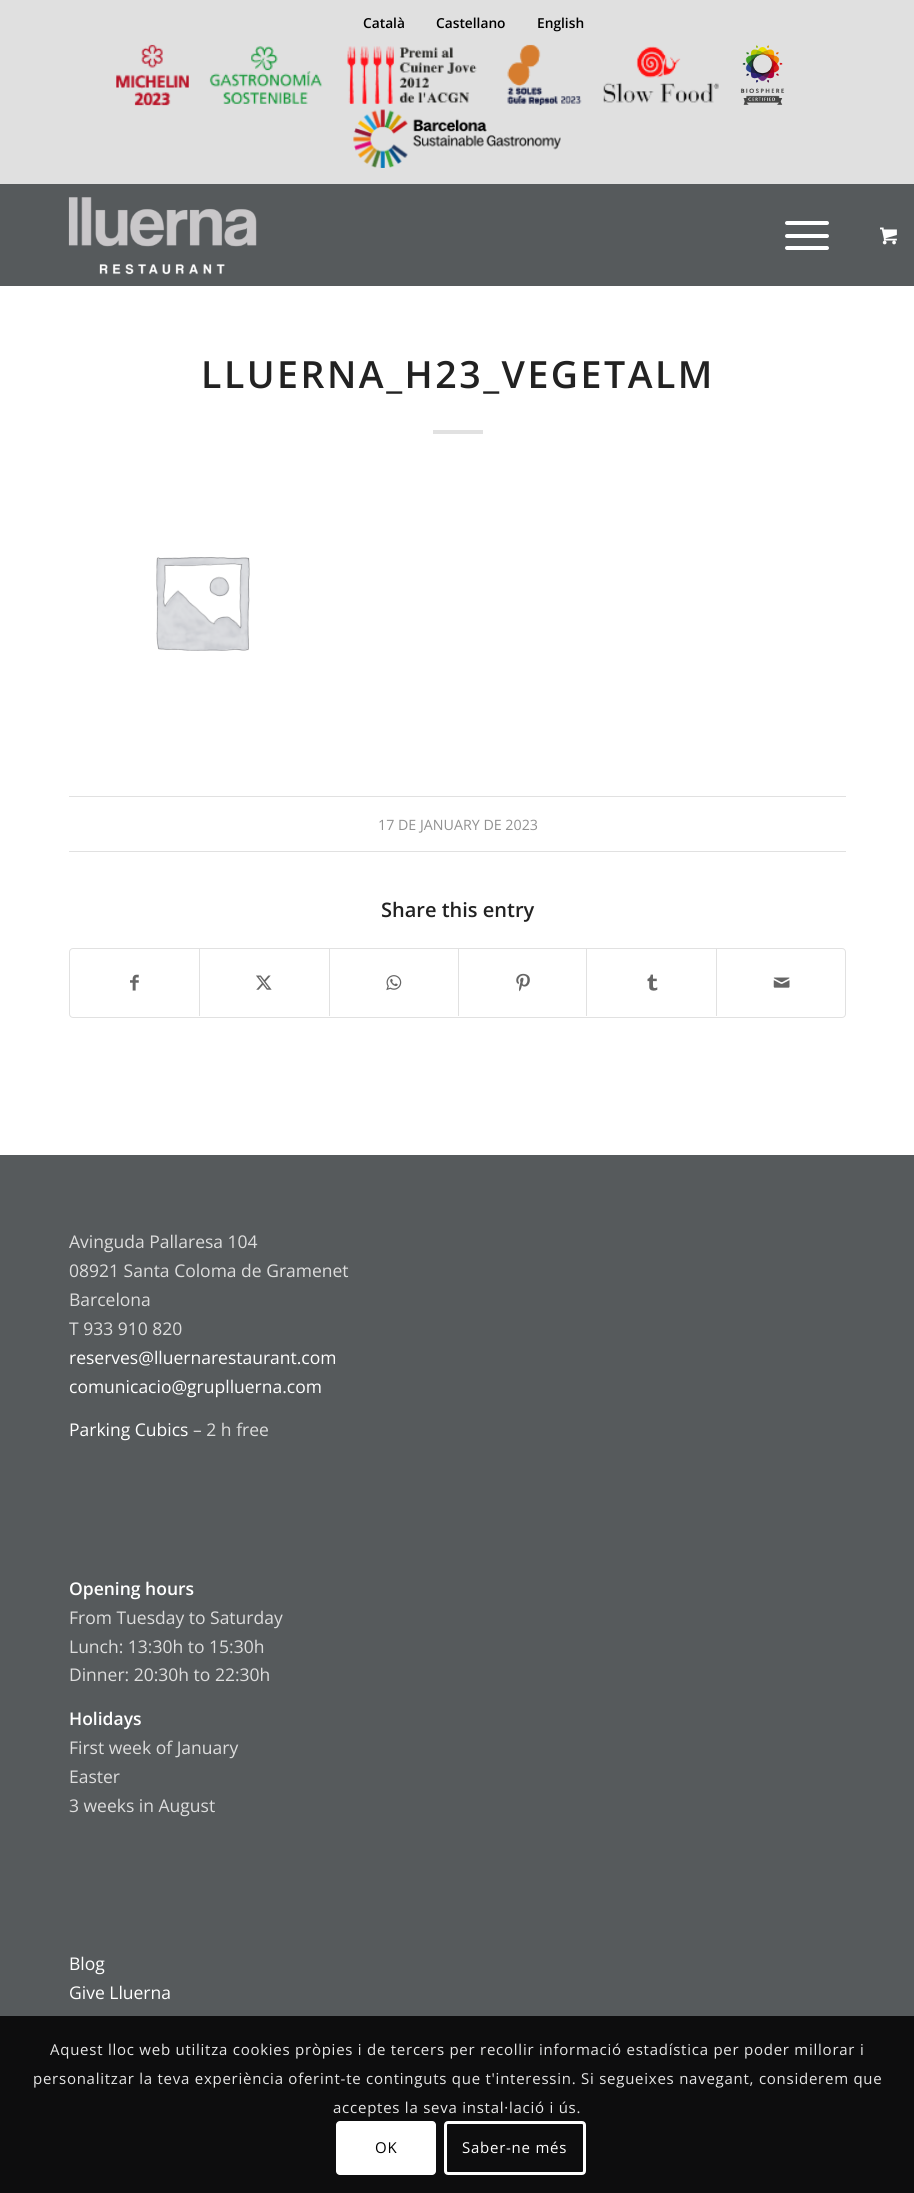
import math
import cairo

surface = cairo.ImageSurface(cairo.Format.RGB24, 914, 2193)
ctx = cairo.Context(surface)
options = cairo.FontOptions()
options.set_hint_metrics(cairo.HintMetrics.OFF)
options.set_hint_style(cairo.HintStyle.NONE)
ctx.set_font_options(options)
ctx.set_miter_limit(4)


def ink(r, g, b):
    ctx.set_source_rgb(r / 255, g / 255, b / 255)


def write(x, y, s, family, size, color, bold=False, italic=False):
    ctx.select_font_face(family, cairo.FontSlant.ITALIC if italic else cairo.FontSlant.NORMAL, cairo.FontWeight.BOLD if bold else cairo.FontWeight.NORMAL)
    ctx.set_font_size(size)
    ink(*color)
    ctx.move_to(x, y)
    ctx.show_text(s)


def write_spaced(x, y, s, letter, word):
    ctx.move_to(x, y)
    for ch in s:
        ctx.show_text(ch)
        ctx.rel_move_to(letter + word * (ch == ' '), 0)


def block(x, y, w, h, *color):
    ink(*color)
    ctx.rectangle(x, y, w, h)
    ctx.fill()


def round_path(x, y, w, h, r):
    ctx.new_sub_path()
    for i, (u, v) in enumerate([(x + w - r, y + h - r), (x + r, y + h - r), (x + r, y + r), (x + w - r, y + r)]):
        ctx.arc(u, v, r, i * math.pi / 2, (i + 1) * math.pi / 2)
    ctx.close_path()


def paste(path, x, y, w, h):
    ctx.save()
    ctx.set_source_surface(cairo.ImageSurface.create_from_png(path), x, y)
    ctx.rectangle(x, y, w, h)
    ctx.fill()
    ctx.restore()


s1 = dict(family="Open Sans SemiBold", size=13.75, color=(0, 0, 0))
s2 = dict(family="Open Sans", size=14.25, color=(145, 145, 145))
s3 = dict(family="Open Sans SemiBold", size=20, color=(34, 34, 34))
s4 = dict(family="Open Sans", size=17.5, color=(221, 221, 221))
s5 = dict(family="Open Sans", size=17.5, color=(255, 255, 255))
s6 = dict(family="Open Sans SemiBold", size=17.5, color=(255, 255, 255))

ink(86, 90, 92)
ctx.paint()
block(0, 0, 914, 184, 224, 224, 224)
write(363, 28, "Català", **s1)
write(436, 28, "Castellano", **s1)
write(537, 28, "English", **s1)
paste("pic1.png", 116, 44, 73, 62)
paste("pic2.png", 209, 46, 114, 58)
paste("pic3.png", 347, 46, 130, 59)
paste("pic4.png", 507, 44, 75, 62)
paste("pic5.png", 603, 46, 116, 57)
paste("pic6.png", 740, 45, 45, 60)
paste("pic7.png", 353, 109, 208, 59)
paste("pic8.png", 68, 197, 189, 78)
ink(255, 255, 255)
round_path(785, 234, 44, 4, 2)
ctx.fill()
round_path(785, 221, 44, 4, 2)
ctx.fill()
round_path(785, 246, 44, 4, 2)
ctx.fill()
paste("pic9.png", 880, 227, 17, 18)
block(0, 286, 914, 869, 255, 255, 255)
ctx.set_font_size(37.5)
ink(34, 34, 34)
write_spaced(201, 388, "LLUERNA_H23_VEGETALM", 2.5, 0)
block(433, 430, 50, 4, 225, 225, 225)
paste("pic10.png", 156, 557, 94, 94)
block(69, 796, 777, 1, 225, 225, 225)
block(69, 851, 777, 1, 225, 225, 225)
write(378, 830, "17 DE JANUARY DE 2023", **s2)
write(381, 917, "Share this entry", **s3)
round_path(69.5, 948.5, 776, 69, 3.5)
ink(225, 225, 225)
ctx.set_line_width(1)
ctx.stroke()
paste("pic11.png", 130, 974, 9, 17)
block(199, 949, 1, 67, 225, 225, 225)
paste("pic12.png", 256, 975, 16, 15)
block(329, 949, 1, 67, 225, 225, 225)
paste("pic13.png", 386, 975, 16, 16)
block(458, 949, 1, 67, 225, 225, 225)
paste("pic14.png", 516, 973, 14, 19)
block(586, 949, 1, 67, 225, 225, 225)
paste("pic15.png", 647, 974, 11, 17)
block(716, 949, 1, 67, 225, 225, 225)
paste("pic16.png", 773, 977, 17, 11)
write(69, 1248, "Avinguda Pallaresa 104", **s4)
write(69, 1277, "08921 Santa Coloma de Gramenet", **s4)
write(69, 1306, "Barcelona", **s4)
write(69, 1335, "T 933 910 820", **s4)
write(69, 1364, "reserves@lluernarestaurant.com", **s5)
write(69, 1393, "comunicacio@gruplluerna.com", **s5)
write(69, 1436, "Parking Cubics", **s5)
write(193, 1436, "– 2 h free", **s4)
write(69, 1595, "Opening hours", **s6)
write(69, 1624, "From Tuesday to Saturday", **s4)
write(69, 1653, "Lunch: 13:30h to 15:30h", **s4)
write(69, 1681, "Dinner: 20:30h to 22:30h", **s4)
write(69, 1725, "Holidays", **s6)
write(69, 1754, "First week of January", **s4)
write(69, 1783, "Easter", **s4)
write(69, 1812, "3 weeks in August", **s4)
write(69, 1970, "Blog", **s5)
write(69, 1999, "Give Lluerna", **s5)
ctx.set_source_rgba(0, 0, 0, 0.85)
ctx.rectangle(0, 2016, 914, 177)
ctx.fill()
ctx.set_font_size(15)
ink(231, 231, 231)
write_spaced(50, 2055, "Aquest lloc web utilitza cookies pròpies i de tercers per recollir informació estadística per poder millorar i", 0.75, 0)
write_spaced(33, 2084, "personalitzar la teva experiència oferint-te continguts que t'interessin. Si segueixes navegant, considerem que", 0.75, 0)
write_spaced(333, 2113, "acceptes la seva instal·lació i ús.", 0.75, 0)
ink(255, 255, 255)
round_path(336, 2121, 100, 54, 4)
ctx.fill()
ink(0, 0, 0)
write_spaced(375, 2153, "OK", 0.75, 0)
round_path(445.5, 2122.5, 139, 51, 2.5)
ink(255, 255, 255)
ctx.set_line_width(3)
ctx.stroke()
write_spaced(462, 2153, "Saber-ne més", 0.75, 0)
surface.write_to_png("screenshot.png")
